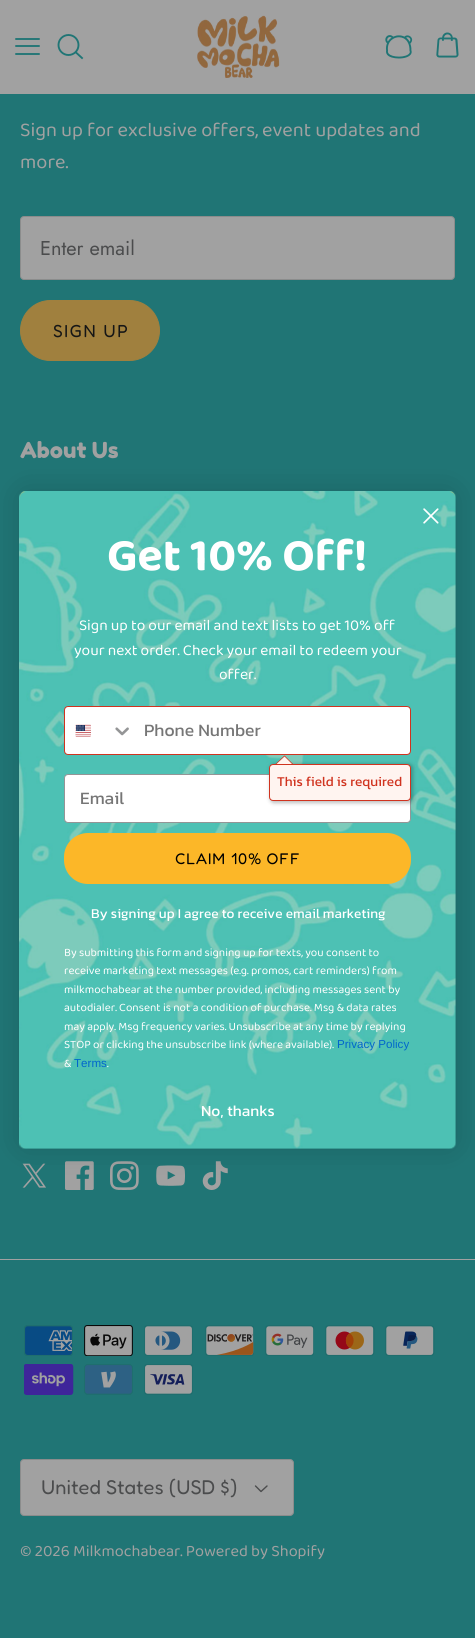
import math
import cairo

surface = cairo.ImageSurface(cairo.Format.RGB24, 475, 1638)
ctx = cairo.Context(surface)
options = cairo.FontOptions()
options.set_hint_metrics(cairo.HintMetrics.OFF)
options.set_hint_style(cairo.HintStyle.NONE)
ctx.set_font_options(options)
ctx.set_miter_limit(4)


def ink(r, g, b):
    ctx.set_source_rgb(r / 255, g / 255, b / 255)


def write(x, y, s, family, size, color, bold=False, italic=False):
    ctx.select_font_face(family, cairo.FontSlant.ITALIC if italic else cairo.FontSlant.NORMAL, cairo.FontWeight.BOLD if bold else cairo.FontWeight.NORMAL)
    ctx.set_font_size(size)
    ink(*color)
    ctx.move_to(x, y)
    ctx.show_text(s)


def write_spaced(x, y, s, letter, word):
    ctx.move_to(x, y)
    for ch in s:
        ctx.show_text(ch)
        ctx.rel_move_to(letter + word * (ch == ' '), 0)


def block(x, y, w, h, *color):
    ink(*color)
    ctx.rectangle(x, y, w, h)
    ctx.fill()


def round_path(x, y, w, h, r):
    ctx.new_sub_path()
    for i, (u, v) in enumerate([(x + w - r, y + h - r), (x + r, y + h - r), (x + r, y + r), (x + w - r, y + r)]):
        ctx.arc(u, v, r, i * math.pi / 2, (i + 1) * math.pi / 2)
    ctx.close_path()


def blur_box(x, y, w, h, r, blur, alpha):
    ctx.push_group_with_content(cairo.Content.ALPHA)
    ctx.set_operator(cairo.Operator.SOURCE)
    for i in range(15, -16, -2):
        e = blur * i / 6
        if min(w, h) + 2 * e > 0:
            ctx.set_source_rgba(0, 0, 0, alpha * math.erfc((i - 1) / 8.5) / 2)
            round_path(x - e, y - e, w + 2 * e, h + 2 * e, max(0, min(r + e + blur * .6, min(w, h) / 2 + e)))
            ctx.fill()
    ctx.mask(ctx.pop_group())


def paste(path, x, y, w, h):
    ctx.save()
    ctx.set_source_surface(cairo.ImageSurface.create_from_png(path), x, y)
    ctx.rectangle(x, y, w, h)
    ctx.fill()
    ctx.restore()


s1 = dict(family="Baloo 2", size=20, color=(161, 161, 161))
s2 = dict(family="Jost", size=20, color=(75, 76, 77))
s3 = dict(family="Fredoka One", size=22, color=(161, 161, 161))
s4 = dict(family="Fredoka Light", size=20, color=(75, 76, 77))
s5 = dict(family="Baloo 2", size=16.25, color=(161, 161, 161))
s6 = dict(family="Baloo 2", size=46.5, color=(255, 255, 255), bold=True)
s7 = dict(family="Baloo 2", size=15.5, color=(255, 255, 255))
s8 = dict(family="Kanit", size=17.5, color=(118, 118, 118))
s9 = dict(family="Kanit", size=13.6, color=(208, 51, 31))
s10 = dict(family="Kanit", size=13.6, color=(255, 255, 255))
s11 = dict(family="Baloo 2", size=11.6, color=(255, 255, 255))
s12 = dict(family="Liberation Sans", size=11.6, color=(0, 102, 204))
s13 = dict(family="Kanit", size=15.5, color=(255, 255, 255))

ink(32, 117, 117)
ctx.paint()
block(0, 0, 475, 94, 161, 161, 161)
ctx.new_path()
ctx.move_to(16, 46)
ctx.line_to(39, 46)
ctx.move_to(16, 39)
ctx.line_to(39, 39)
ctx.move_to(16, 54)
ctx.line_to(39, 54)
ink(32, 117, 117)
ctx.set_line_width(1.9)
ctx.set_line_cap(cairo.LineCap.ROUND)
ctx.set_line_join(cairo.LineJoin.ROUND)
ctx.stroke()
ctx.arc(68.5, 45, 10, 0, 2 * math.pi)
ctx.set_line_cap(cairo.LineCap.BUTT)
ctx.set_line_join(cairo.LineJoin.MITER)
ctx.stroke()
ctx.new_path()
ctx.move_to(76, 52.5)
ctx.line_to(82, 58)
ctx.set_line_cap(cairo.LineCap.SQUARE)
ctx.stroke()
paste("pic1.png", 197, 15, 83, 63)
paste("pic2.png", 385, 35, 28, 24)
paste("pic3.png", 436, 32, 23, 26)
write(20, 136, "Sign up for exclusive offers, event updates and", **s1)
write(20, 168, "more.", **s1)
round_path(20.5, 216.5, 434, 63, 3.5)
ctx.fill_preserve()
ink(139, 140, 140)
ctx.set_line_width(1)
ctx.set_line_cap(cairo.LineCap.BUTT)
ctx.stroke()
write(40, 255, "Enter email", **s2)
ink(160, 128, 62)
round_path(20.5, 300.5, 139, 60, 30)
ctx.fill_preserve()
ctx.stroke()
ctx.select_font_face("Fredoka Light")
ctx.set_font_size(17.5)
ink(22, 22, 22)
write_spaced(53, 337, "SIGN UP", 1.5, 0)
write(20, 458, "About Us", **s3)
paste("pic4.png", 22, 1163, 24, 25)
paste("pic5.png", 65, 1161, 29, 29)
paste("pic6.png", 110, 1161, 29, 29)
paste("pic7.png", 156, 1165, 29, 21)
paste("pic8.png", 202, 1161, 26, 29)
block(0, 1259, 475, 1, 161, 161, 161)
paste("pic9.png", 24, 1325, 49, 31)
paste("pic10.png", 84, 1325, 49, 31)
paste("pic11.png", 144, 1325, 49, 31)
paste("pic12.png", 205, 1325, 49, 31)
paste("pic13.png", 265, 1325, 49, 31)
paste("pic14.png", 325, 1325, 50, 31)
paste("pic15.png", 385, 1325, 50, 31)
paste("pic16.png", 24, 1364, 50, 31)
paste("pic17.png", 84, 1364, 49, 31)
paste("pic18.png", 144, 1364, 49, 31)
round_path(20.5, 1459.5, 273, 56, 3.5)
ctx.fill_preserve()
ink(139, 140, 140)
ctx.stroke()
write(41, 1494, "United States (USD $)", **s4)
ctx.new_path()
ctx.move_to(255.5, 1486)
ctx.line_to(261, 1491.5)
ctx.line_to(267, 1486)
ctx.set_line_width(1.4)
ctx.set_line_cap(cairo.LineCap.ROUND)
ctx.set_line_join(cairo.LineJoin.ROUND)
ctx.stroke()
write(20, 1556, "© 2026 Milkmochabear. Powered by Shopify", **s5)
ink(0, 0, 0)
blur_box(20, 491, 435, 657, 6, 14.5, 0.15)
ink(241, 190, 72)
round_path(20, 491, 435, 657, 6)
ctx.fill()
paste("pic20.png", 19, 491, 437, 658)
paste("pic19.png", 423, 508, 16, 16)
write(107, 570, "Get 10% Off!", **s6)
write(79, 630, "Sign up to our email and text lists to get 10% off", **s7)
write(74, 655, "your next order. Check your email to redeem your", **s7)
write(219, 679, "offer.", **s7)
round_path(64.5, 706.5, 346, 48, 3.5)
ctx.fill_preserve()
ink(208, 51, 31)
ctx.set_line_width(1)
ctx.set_line_cap(cairo.LineCap.BUTT)
ctx.set_line_join(cairo.LineJoin.MITER)
ctx.stroke()
paste("pic21.png", 75, 724, 16, 13)
paste("pic22.png", 115, 727, 14, 9)
write(144, 736, "Phone Number", **s8)
ink(255, 255, 255)
round_path(64.5, 774.5, 346, 48, 3.5)
ctx.fill_preserve()
ink(148, 149, 150)
ctx.stroke()
ink(0, 0, 0)
blur_box(270, 764, 143, 39, 4, 2, 0.26)
ink(255, 244, 240)
round_path(269.5, 764.5, 141, 36, 3.5)
ctx.fill_preserve()
ink(208, 51, 31)
ctx.stroke()
ctx.new_path()
ctx.move_to(293, 764)
ctx.line_to(275.5, 764)
ctx.line_to(284.5, 755.5)
ctx.close_path()
ctx.fill()
ink(255, 244, 240)
ctx.new_path()
ctx.move_to(292, 764)
ctx.line_to(276.5, 764)
ctx.line_to(284.5, 756.5)
ctx.close_path()
ctx.fill()
write(277, 786, "This field is required", **s9)
write(80, 804, "Email", **s8)
ink(252, 183, 40)
round_path(64, 833, 347, 51, 24)
ctx.fill()
ctx.select_font_face("Fredoka Light")
ctx.set_font_size(15.5)
ink(0, 0, 0)
write_spaced(175, 864, "CLAIM 10% OFF", 1, 0)
write(91, 918, "By signing up I agree to receive email marketing", **s10)
write(64, 956, "By submitting this form and signing up for texts, you consent to", **s11)
write(64, 974, "receive marketing text messages (e.g. promos, cart reminders) from", **s11)
write(64, 993, "milkmochabear at the number provided, including messages sent by", **s11)
write(64, 1011, "autodialer. Consent is not a condition of purchase. Msg & data rates", **s11)
write(64, 1030, "may apply. Msg frequency varies. Unsubscribe at any time by replying", **s11)
write(64, 1048, "STOP or clicking the unsubscribe link (where available).", **s11)
write(337, 1048, "Privacy Policy", **s12)
write(64, 1067, "&", **s11)
write(74, 1067, "Terms", **s12)
write(107, 1067, ".", **s11)
write(201, 1116, "No, thanks", **s13)
surface.write_to_png("screenshot.png")
